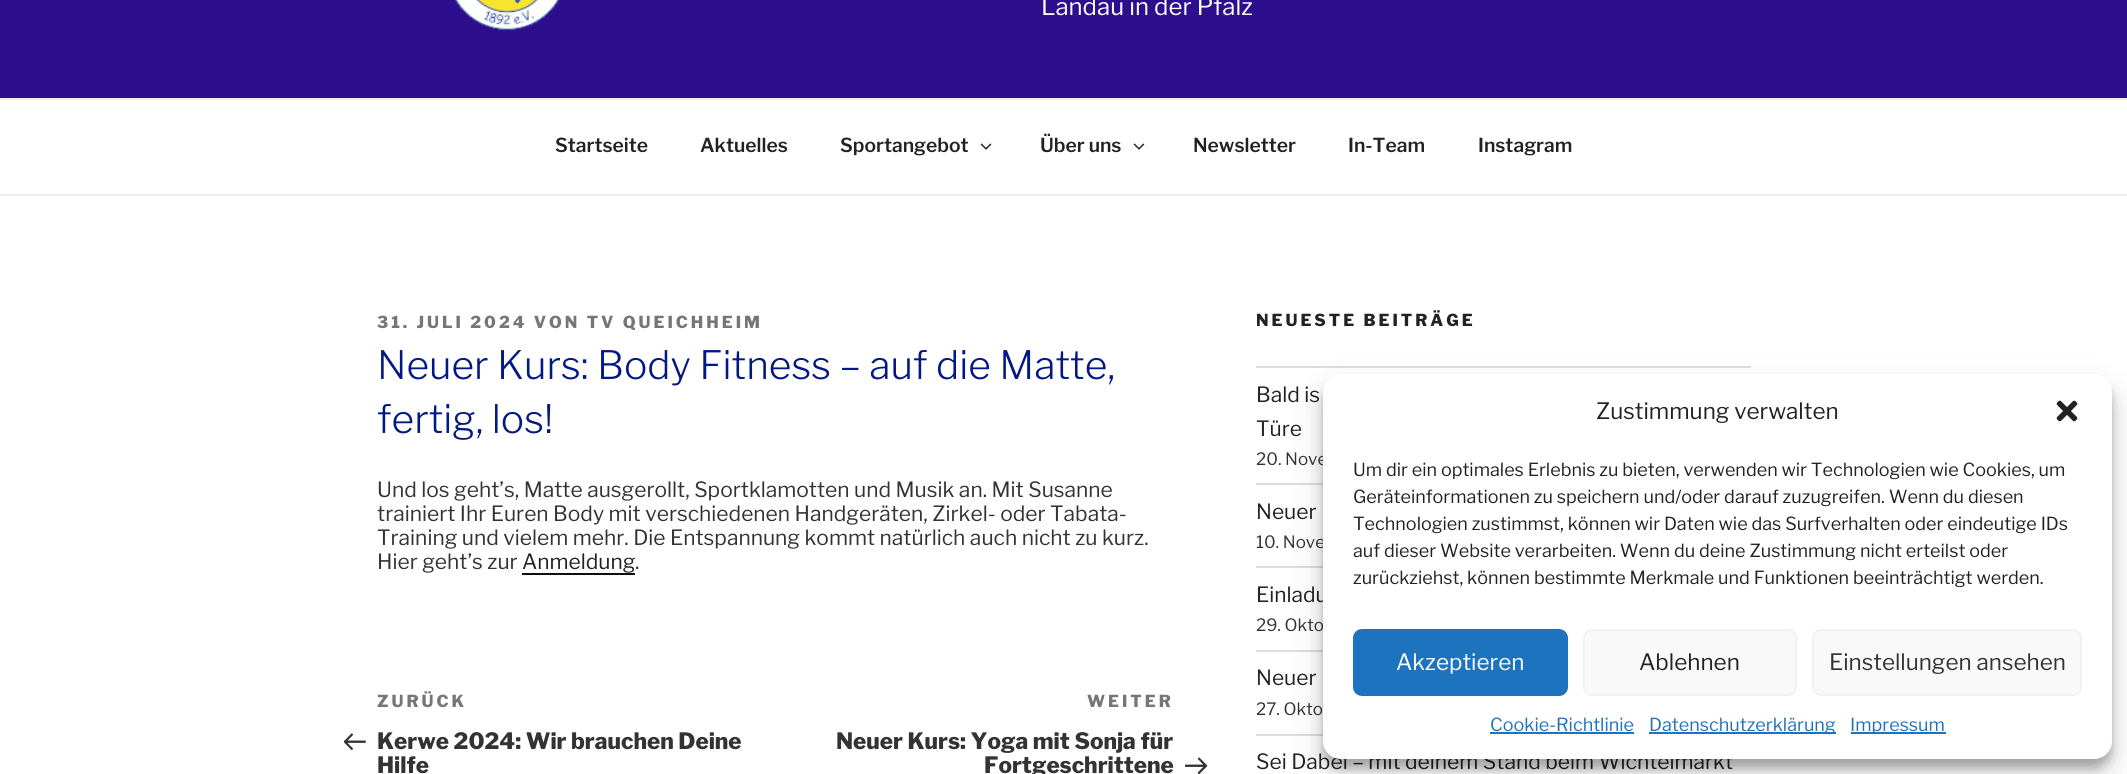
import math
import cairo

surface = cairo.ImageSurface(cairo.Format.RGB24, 2127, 774)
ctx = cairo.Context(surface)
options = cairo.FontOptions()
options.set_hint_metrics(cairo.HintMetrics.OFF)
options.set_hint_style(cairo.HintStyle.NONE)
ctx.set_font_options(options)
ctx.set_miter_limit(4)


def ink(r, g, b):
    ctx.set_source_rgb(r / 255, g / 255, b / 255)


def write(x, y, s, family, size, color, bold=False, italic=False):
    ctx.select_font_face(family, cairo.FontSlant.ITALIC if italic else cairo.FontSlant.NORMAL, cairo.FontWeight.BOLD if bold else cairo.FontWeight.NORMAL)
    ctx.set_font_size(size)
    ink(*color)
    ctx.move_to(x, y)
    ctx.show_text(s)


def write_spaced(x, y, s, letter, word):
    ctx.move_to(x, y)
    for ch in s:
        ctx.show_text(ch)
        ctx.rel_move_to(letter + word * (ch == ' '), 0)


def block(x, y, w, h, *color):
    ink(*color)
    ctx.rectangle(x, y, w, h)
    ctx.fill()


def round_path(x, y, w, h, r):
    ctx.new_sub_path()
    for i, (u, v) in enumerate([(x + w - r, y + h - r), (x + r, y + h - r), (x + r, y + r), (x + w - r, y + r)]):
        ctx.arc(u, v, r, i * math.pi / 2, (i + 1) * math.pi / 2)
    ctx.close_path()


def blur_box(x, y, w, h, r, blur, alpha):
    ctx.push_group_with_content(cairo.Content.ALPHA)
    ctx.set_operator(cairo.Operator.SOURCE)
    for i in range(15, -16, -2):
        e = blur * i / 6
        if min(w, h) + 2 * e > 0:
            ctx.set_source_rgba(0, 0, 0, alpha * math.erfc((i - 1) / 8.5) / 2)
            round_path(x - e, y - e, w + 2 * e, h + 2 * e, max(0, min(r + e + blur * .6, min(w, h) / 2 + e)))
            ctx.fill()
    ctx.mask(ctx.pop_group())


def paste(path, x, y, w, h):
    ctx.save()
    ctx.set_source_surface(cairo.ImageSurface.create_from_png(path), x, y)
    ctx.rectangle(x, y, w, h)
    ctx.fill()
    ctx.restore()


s1 = dict(family="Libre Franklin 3 Thin", size=24, color=(255, 255, 255))
s2 = dict(family="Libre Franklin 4 Thin", size=19.25, color=(34, 34, 34))
s3 = dict(family="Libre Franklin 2 Thin", size=39, color=(2, 24, 132))
s4 = dict(family="Libre Franklin 3 Thin", size=21, color=(51, 51, 51))
s5 = dict(family="Libre Franklin 3 Thin", size=21, color=(34, 34, 34))
s6 = dict(family="Libre Franklin Thin", size=22.5, color=(51, 51, 51))
s7 = dict(family="Libre Franklin 3 Thin", size=17, color=(51, 51, 51))
s8 = dict(family="Libre Franklin 3 Thin", size=22.5, color=(34, 34, 34))
s9 = dict(family="Libre Franklin 3 Thin", size=18, color=(34, 34, 34))
s10 = dict(family="Libre Franklin 3 Thin", size=22.5, color=(255, 255, 255))
s11 = dict(family="Libre Franklin 3 Thin", size=22.5, color=(51, 51, 51))
s12 = dict(family="Libre Franklin 3 Thin", size=18, color=(30, 115, 190))

ink(255, 255, 255)
ctx.paint()
block(0, 0, 2127, 98, 45, 14, 140)
paste("pic1.png", 455, 0, 105, 30)
write(1041, 15, "Landau in der Pfalz", **s1)
block(0, 98, 2127, 2, 238, 238, 238)
block(0, 194, 2127, 2, 238, 238, 238)
write(555, 152, "Startseite", **s2)
write(700, 152, "Aktuelles", **s2)
write(840, 152, "Sportangebot", **s2)
paste("pic2.png", 980, 143, 12, 7)
write(1040, 152, "Über uns", **s2)
paste("pic2.png", 1133, 143, 12, 7)
write(1193, 152, "Newsletter", **s2)
write(1348, 152, "In-Team", **s2)
write(1478, 152, "Instagram", **s2)
ctx.select_font_face("Libre Franklin Thin")
ctx.set_font_size(16.5)
ink(118, 118, 118)
write_spaced(377, 328, "31. JULI 2024 VON TV QUEICHHEIM", 3, 0)
write(377, 379, "Neuer Kurs: Body Fitness – auf die Matte,", **s3)
write(377, 433, "fertig, los!", **s3)
write(377, 497, "Und los geht’s, Matte ausgerollt, Sportklamotten und Musik an. Mit Susanne", **s4)
write(377, 521, "trainiert Ihr Euren Body mit verschiedenen Handgeräten, Zirkel- oder Tabata-", **s4)
write(377, 545, "Training und vielem mehr. Die Entspannung kommt natürlich auch nicht zu kurz.", **s4)
write(377, 569, "Hier geht’s zur", **s4)
write(522, 569, "Anmeldung", **s5)
block(522, 573, 113, 2, 15, 15, 15)
write(635, 569, ".", **s4)
ctx.select_font_face("Libre Franklin Thin")
ctx.set_font_size(16.5)
ink(118, 118, 118)
write_spaced(377, 707, "ZURÜCK", 3, 0)
paste("pic3.png", 344, 733, 22, 18)
write(377, 749, "Kerwe 2024: Wir brauchen Deine", **s6)
write(377, 773, "Hilfe", **s6)
ctx.set_font_size(16.5)
ink(118, 118, 118)
write_spaced(1087, 707, "WEITER", 3, 0)
write(836, 749, "Neuer Kurs: Yoga mit Sonja für", **s6)
write(984, 773, "Fortgeschrittene", **s6)
paste("pic4.png", 1185, 757, 23, 17)
ctx.set_font_size(16.5)
ink(34, 34, 34)
write_spaced(1256, 326, "NEUESTE BEITRÄGE", 3, 0)
block(1256, 366, 495, 2, 221, 221, 221)
block(1256, 483, 67, 2, 221, 221, 221)
write(1256, 402, "Bald is", **s5)
write(1256, 436, "Türe", **s5)
write(1256, 465, "20. Nove", **s7)
block(1256, 566, 67, 2, 221, 221, 221)
write(1256, 519, "Neuer", **s5)
write(1256, 548, "10. Nove", **s7)
block(1256, 650, 67, 2, 221, 221, 221)
write(1256, 602, "Einladu", **s5)
write(1256, 631, "29. Okto", **s7)
block(1256, 734, 67, 2, 221, 221, 221)
write(1256, 685, "Neuer", **s5)
write(1256, 715, "27. Okto", **s7)
write(1256, 769, "Sei Dabei – mit deinem Stand beim Wichtelmarkt", **s5)
ink(0, 0, 0)
blur_box(1323, 383, 789, 385, 18, 4.5, 0.23)
blur_box(1323, 389, 789, 385, 18, 15, 0.19)
ink(255, 255, 255)
round_path(1323, 374, 789, 385, 18)
ctx.fill()
write(1596, 419, "Zustimmung verwalten", **s8)
paste("pic5.png", 2056, 400, 22, 22)
write(1353, 476, "Um dir ein optimales Erlebnis zu bieten, verwenden wir Technologien wie Cookies, um", **s9)
write(1353, 503, "Geräteinformationen zu speichern und/oder darauf zuzugreifen. Wenn du diesen", **s9)
write(1353, 530, "Technologien zustimmst, können wir Daten wie das Surfverhalten oder eindeutige IDs", **s9)
write(1353, 557, "auf dieser Website verarbeiten. Wenn du deine Zustimmung nicht erteilst oder", **s9)
write(1353, 584, "zurückziehst, können bestimmte Merkmale und Funktionen beeinträchtigt werden.", **s9)
ink(30, 115, 190)
round_path(1354, 630, 213, 65, 8)
ctx.fill_preserve()
ctx.stroke()
write(1396, 670, "Akzeptieren", **s10)
ink(249, 249, 249)
round_path(1584, 630, 212, 65, 8)
ctx.fill_preserve()
ink(242, 242, 242)
ctx.stroke()
write(1639, 670, "Ablehnen", **s8)
ink(249, 249, 249)
round_path(1813, 630, 268, 65, 8)
ctx.fill_preserve()
ink(242, 242, 242)
ctx.stroke()
write(1829, 670, "Einstellungen ansehen", **s11)
write(1490, 731, "Cookie-Richtlinie", **s12)
block(1490, 732, 144, 2, 30, 115, 190)
block(1649, 732, 187, 2, 30, 115, 190)
write(1649, 731, "Datenschutzerklärung", **s12)
block(1851, 732, 95, 2, 30, 115, 190)
write(1850, 731, "Impressum", **s12)
surface.write_to_png("screenshot.png")
